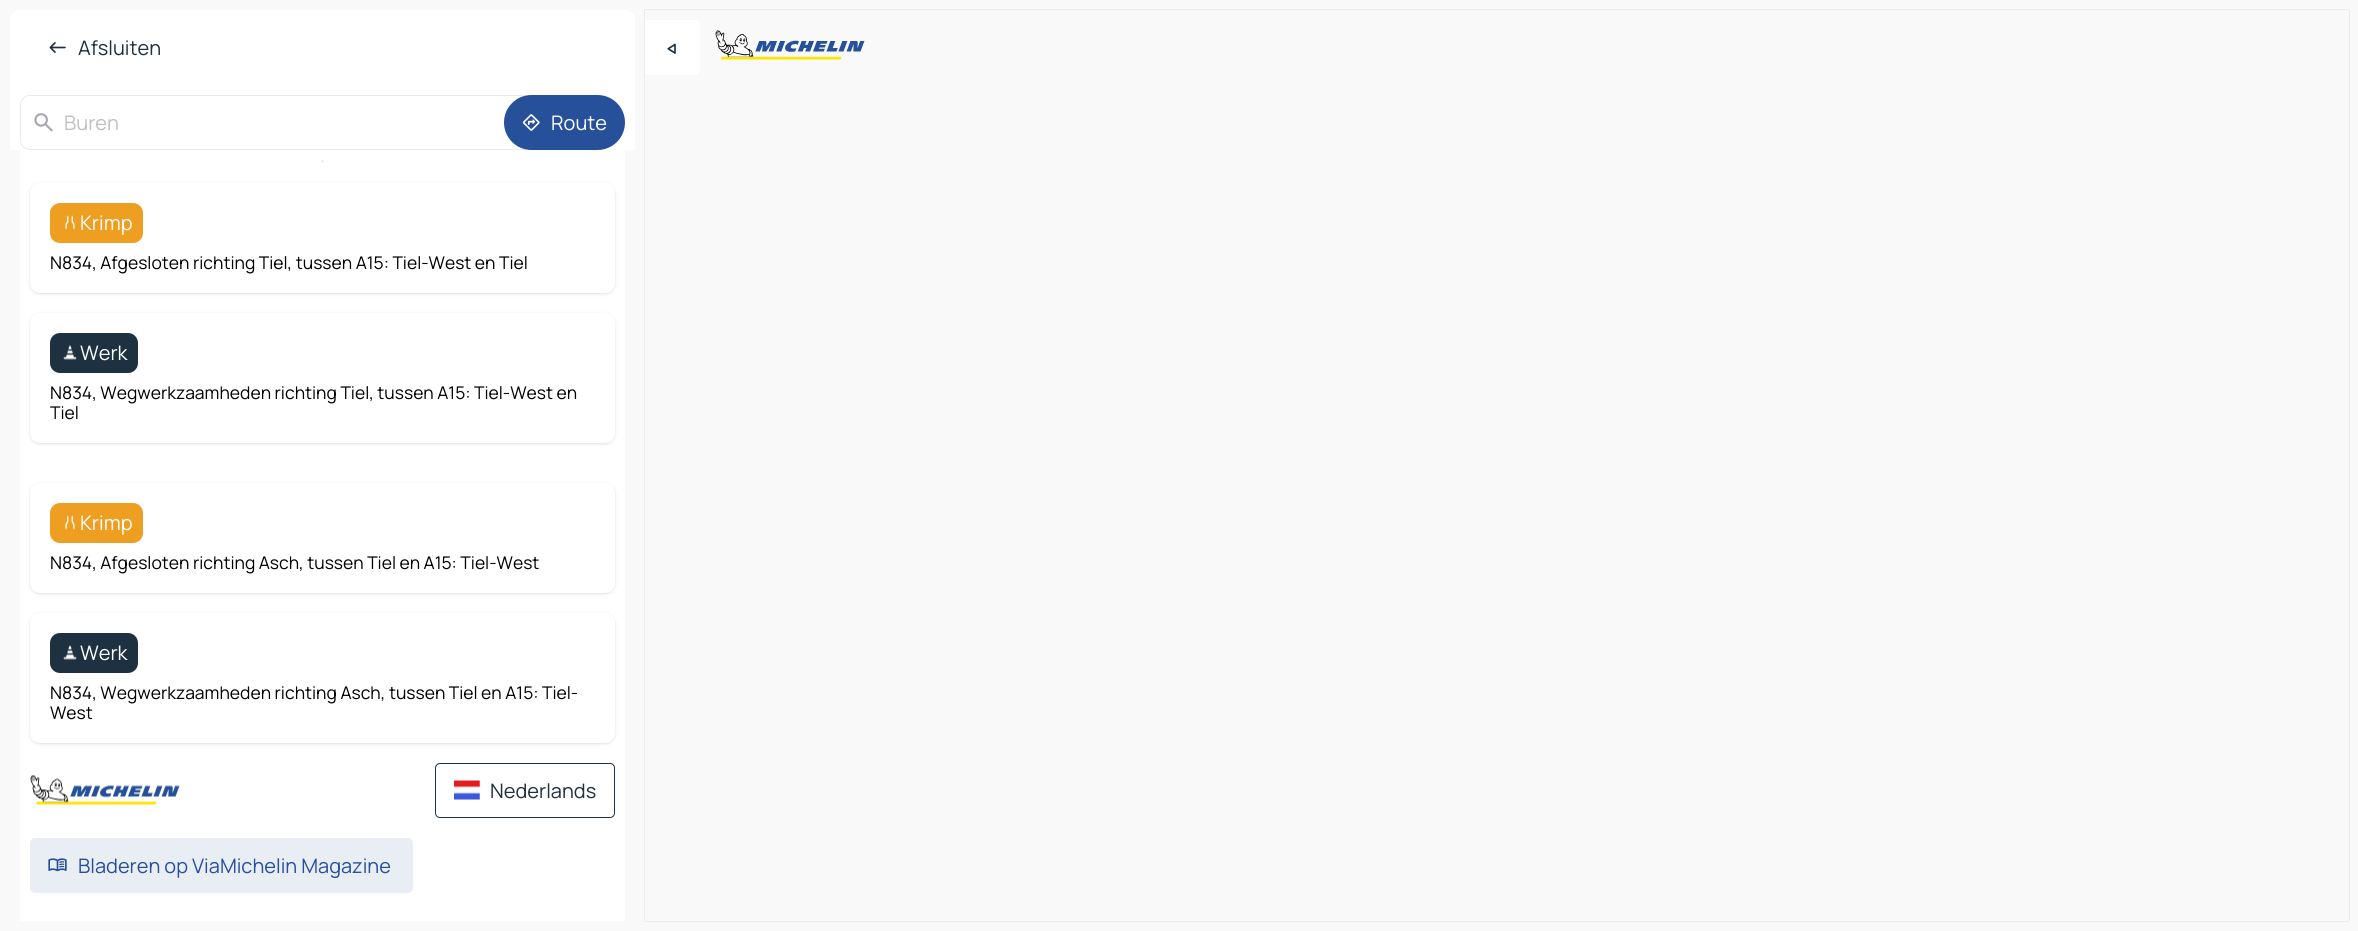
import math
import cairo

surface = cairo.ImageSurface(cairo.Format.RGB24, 2358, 931)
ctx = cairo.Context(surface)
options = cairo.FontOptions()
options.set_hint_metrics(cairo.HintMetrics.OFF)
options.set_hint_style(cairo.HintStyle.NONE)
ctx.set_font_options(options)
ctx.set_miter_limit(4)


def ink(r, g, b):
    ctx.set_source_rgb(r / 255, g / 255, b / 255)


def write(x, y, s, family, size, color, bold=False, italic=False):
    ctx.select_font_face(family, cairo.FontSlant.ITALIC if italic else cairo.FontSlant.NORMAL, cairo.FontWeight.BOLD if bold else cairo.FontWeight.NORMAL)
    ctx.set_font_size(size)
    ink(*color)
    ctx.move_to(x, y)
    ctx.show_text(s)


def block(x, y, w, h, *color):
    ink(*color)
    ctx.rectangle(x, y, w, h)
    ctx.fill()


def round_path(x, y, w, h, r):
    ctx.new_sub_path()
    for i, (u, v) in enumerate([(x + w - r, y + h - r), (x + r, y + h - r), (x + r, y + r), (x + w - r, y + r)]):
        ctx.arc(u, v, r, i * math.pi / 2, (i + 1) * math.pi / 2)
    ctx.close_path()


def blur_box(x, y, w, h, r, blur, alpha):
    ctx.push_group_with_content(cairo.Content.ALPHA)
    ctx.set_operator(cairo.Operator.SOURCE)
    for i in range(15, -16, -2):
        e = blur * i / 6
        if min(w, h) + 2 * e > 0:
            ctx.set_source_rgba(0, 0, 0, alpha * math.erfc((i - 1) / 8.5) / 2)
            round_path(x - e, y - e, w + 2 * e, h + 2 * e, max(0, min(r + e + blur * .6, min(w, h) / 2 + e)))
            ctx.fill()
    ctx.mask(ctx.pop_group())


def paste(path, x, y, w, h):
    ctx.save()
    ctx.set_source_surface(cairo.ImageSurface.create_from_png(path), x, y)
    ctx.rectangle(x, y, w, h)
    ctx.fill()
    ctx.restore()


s1 = dict(family="Manrope ExtraLight", size=20, color=(29, 49, 64))
s2 = dict(family="Manrope ExtraLight", size=20, color=(192, 192, 192))
s3 = dict(family="Manrope ExtraLight", size=20, color=(255, 255, 255))
s4 = dict(family="Manrope ExtraLight", size=17.5, color=(0, 0, 0))
s5 = dict(family="Manrope ExtraLight", size=20, color=(39, 80, 155))

ink(249, 249, 249)
ctx.paint()
ink(255, 255, 255)
round_path(10, 10, 625, 911, 10)
ctx.fill()
paste("pic1.png", 49, 42, 17, 11)
write(78, 55, "Afsluiten", **s1)
round_path(20.5, 95.5, 513, 54, 9.5)
ink(232, 234, 236)
ctx.set_line_width(1)
ctx.stroke()
paste("pic2.png", 34, 113, 19, 19)
write(64, 130, "Buren", **s2)
ink(39, 80, 155)
round_path(504, 95, 121, 55, 27.5)
ctx.fill()
paste("pic3.png", 522, 114, 18, 17)
write(551, 130, "Route", **s3)
ink(249, 249, 249)
ctx.new_path()
ctx.move_to(10, 150)
ctx.line_to(635, 150)
ctx.line_to(635, 911)
ctx.curve_to(635, 916.5, 630.5, 921, 625, 921)
ctx.line_to(20, 921)
ctx.curve_to(14.5, 921, 10, 916.5, 10, 911)
ctx.close_path()
ctx.fill()
block(20, 150, 605, 771, 255, 255, 255)
block(321, 160, 3, 3, 242, 242, 242)
ink(29, 49, 64)
blur_box(30, 184, 585, 110, 10, 2, 0.1)
blur_box(30, 184, 585, 110, 10, 1, 0.06)
ink(255, 255, 255)
round_path(30, 183, 585, 110, 10)
ctx.fill()
ink(238, 159, 34)
round_path(50, 203, 93, 40, 10)
ctx.fill()
paste("pic4.png", 65, 215, 10, 15)
write(80, 230, "Krimp", **s3)
write(50, 269, "N834, Afgesloten richting Tiel, tussen A15: Tiel-West en Tiel", **s4)
ink(29, 49, 64)
blur_box(30, 314, 585, 130, 10, 2, 0.1)
blur_box(30, 314, 585, 130, 10, 1, 0.06)
ink(255, 255, 255)
round_path(30, 313, 585, 130, 10)
ctx.fill()
ink(29, 49, 64)
round_path(50, 333, 88, 40, 10)
ctx.fill()
paste("pic5.png", 63, 345, 14, 15)
write(80, 360, "Werk", **s3)
write(50, 399, "N834, Wegwerkzaamheden richting Tiel, tussen A15: Tiel-West en", **s4)
write(50, 419, "Tiel", **s4)
ink(29, 49, 64)
blur_box(30, 484, 585, 110, 10, 2, 0.1)
blur_box(30, 484, 585, 110, 10, 1, 0.06)
ink(255, 255, 255)
round_path(30, 483, 585, 110, 10)
ctx.fill()
ink(238, 159, 34)
round_path(50, 503, 93, 40, 10)
ctx.fill()
paste("pic4.png", 65, 515, 10, 15)
write(80, 530, "Krimp", **s3)
write(50, 569, "N834, Afgesloten richting Asch, tussen Tiel en A15: Tiel-West", **s4)
ink(29, 49, 64)
blur_box(30, 614, 585, 130, 10, 2, 0.1)
blur_box(30, 614, 585, 130, 10, 1, 0.06)
ink(255, 255, 255)
round_path(30, 613, 585, 130, 10)
ctx.fill()
ink(29, 49, 64)
round_path(50, 633, 88, 40, 10)
ctx.fill()
paste("pic5.png", 63, 645, 14, 15)
write(80, 660, "Werk", **s3)
write(50, 699, "N834, Wegwerkzaamheden richting Asch, tussen Tiel en A15: Tiel-", **s4)
write(50, 719, "West", **s4)
paste("pic6.png", 30, 775, 150, 30)
round_path(435.5, 763.5, 179, 54, 4.5)
ink(29, 49, 64)
ctx.stroke()
paste("pic7.png", 454, 780, 26, 20)
write(490, 798, "Nederlands", **s1)
ink(233, 238, 245)
round_path(30, 838, 383, 55, 5)
ctx.fill()
paste("pic8.png", 48, 858, 19, 14)
write(78, 873, "Bladeren op ViaMichelin Magazine", **s5)
ctx.save()
ctx.set_fill_rule(cairo.FillRule.EVEN_ODD)
ctx.new_path()
ctx.move_to(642, 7)
ctx.line_to(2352, 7)
ctx.line_to(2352, 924)
ctx.line_to(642, 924)
ctx.close_path()
ctx.move_to(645, 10)
ctx.line_to(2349, 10)
ctx.line_to(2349, 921)
ctx.line_to(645, 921)
ctx.close_path()
ctx.clip()
ink(12, 26, 75)
blur_box(645, 10, 1704, 911, 0, 0.5, 0.24)
ctx.restore()
ink(255, 255, 255)
ctx.new_path()
ctx.move_to(645, 20)
ctx.line_to(695, 20)
ctx.curve_to(698, 20, 700, 22, 700, 25)
ctx.line_to(700, 70)
ctx.curve_to(700, 73, 698, 75, 695, 75)
ctx.line_to(645, 75)
ctx.close_path()
ctx.fill()
paste("pic9.png", 667, 43, 9, 11)
paste("pic10.png", 715, 30, 150, 30)
surface.write_to_png("screenshot.png")
